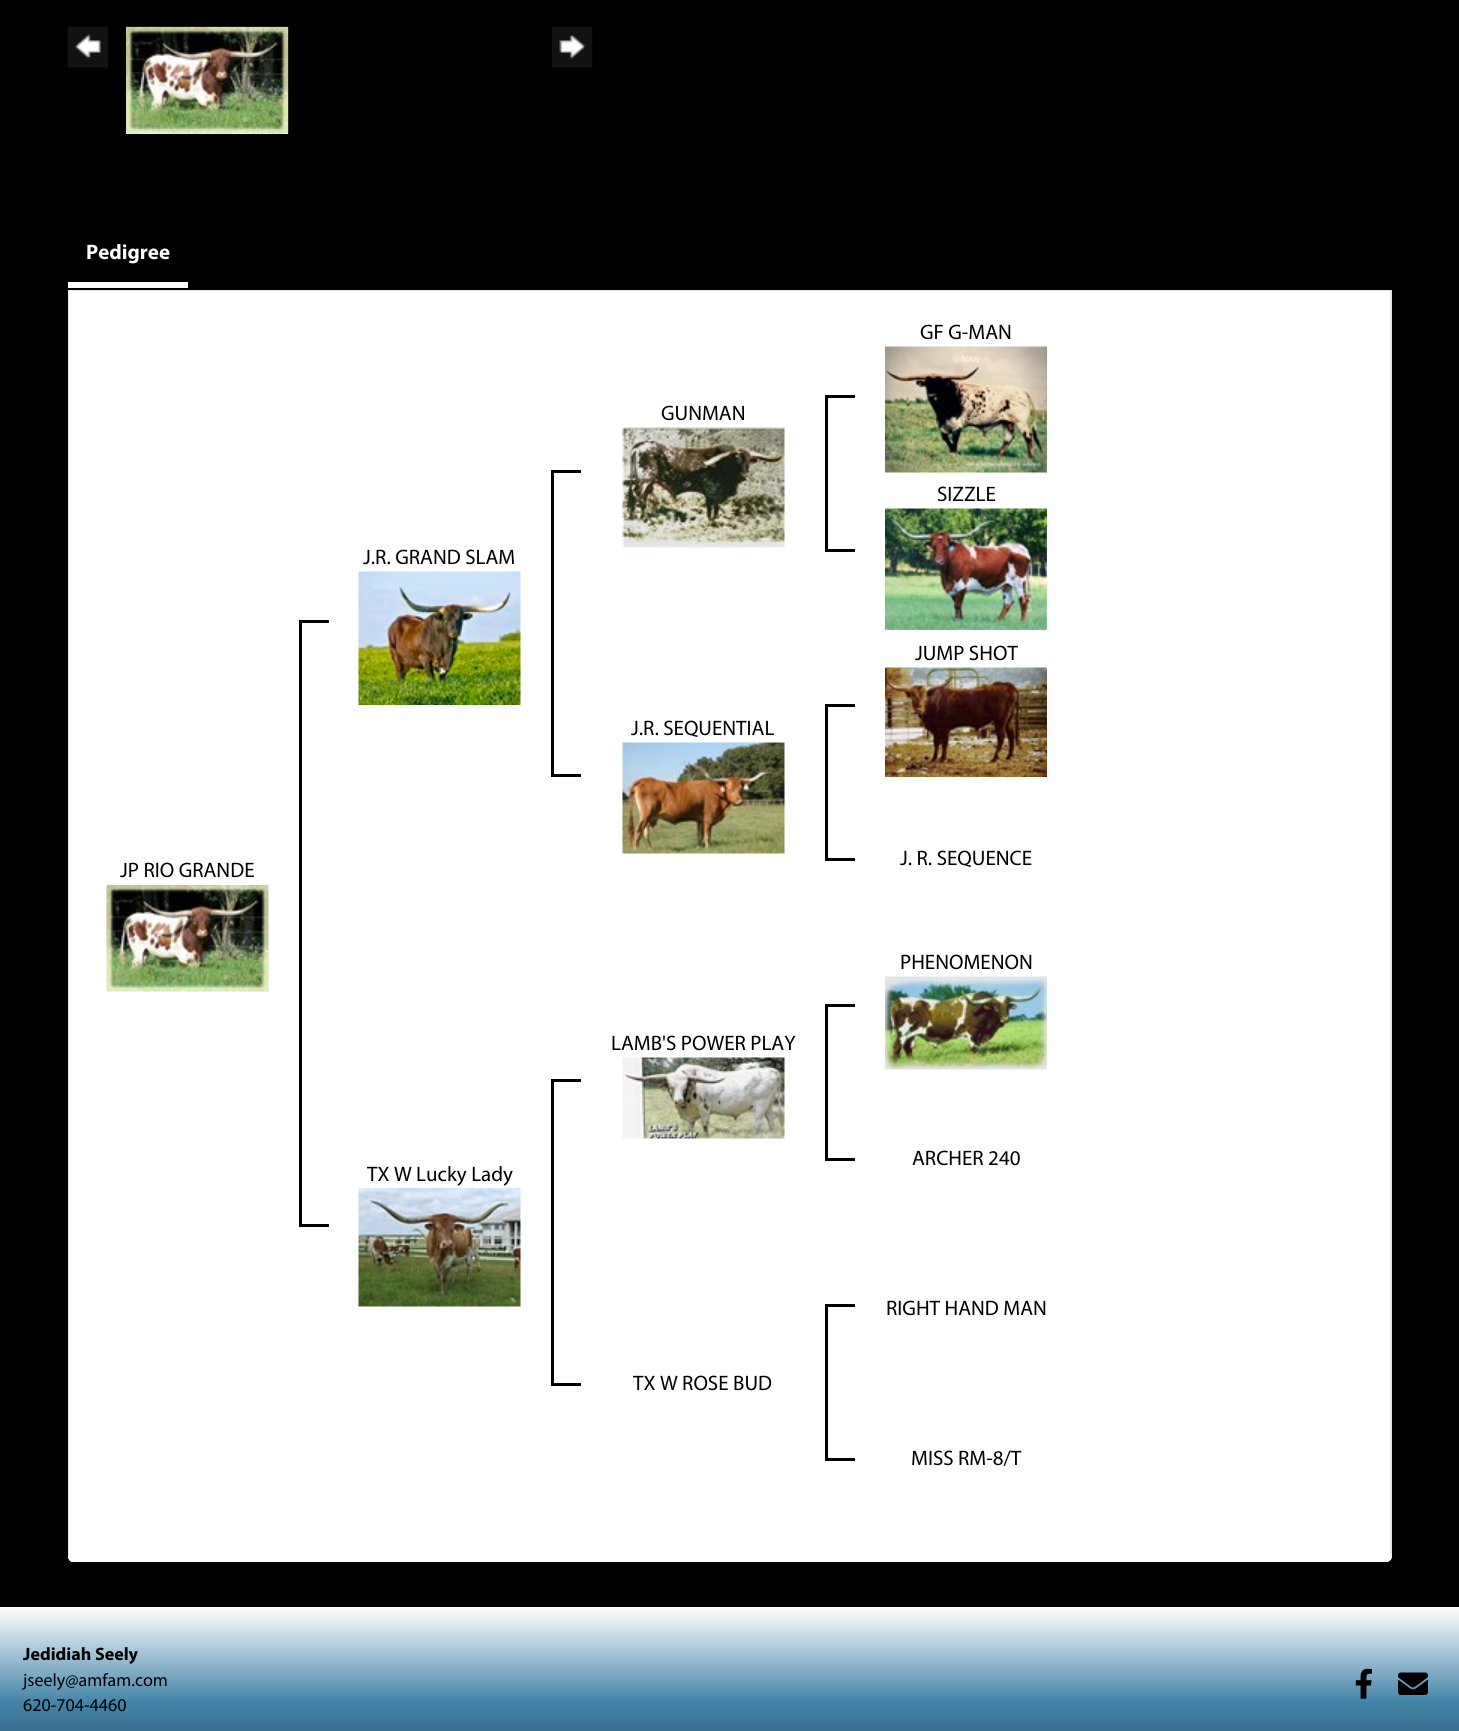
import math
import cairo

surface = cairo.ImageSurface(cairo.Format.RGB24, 1459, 1731)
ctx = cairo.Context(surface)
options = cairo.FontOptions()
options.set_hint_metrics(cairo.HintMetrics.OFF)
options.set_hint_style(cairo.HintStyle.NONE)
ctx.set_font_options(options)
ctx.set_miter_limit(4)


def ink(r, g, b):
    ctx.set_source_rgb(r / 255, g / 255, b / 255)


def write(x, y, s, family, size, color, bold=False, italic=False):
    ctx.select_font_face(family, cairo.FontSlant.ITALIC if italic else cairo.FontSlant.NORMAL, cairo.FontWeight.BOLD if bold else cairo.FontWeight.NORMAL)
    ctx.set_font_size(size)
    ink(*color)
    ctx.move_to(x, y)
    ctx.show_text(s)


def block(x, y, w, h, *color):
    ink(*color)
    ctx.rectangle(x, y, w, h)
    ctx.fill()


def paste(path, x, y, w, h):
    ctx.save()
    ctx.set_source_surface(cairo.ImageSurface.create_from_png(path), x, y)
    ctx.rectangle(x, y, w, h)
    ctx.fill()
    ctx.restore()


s1 = dict(family="Myriad", size=21, color=(255, 255, 255), bold=True)
s2 = dict(family="Myriad", size=21, color=(0, 0, 0))
s3 = dict(family="Myriad", size=18, color=(0, 0, 0), bold=True)
s4 = dict(family="Myriad", size=18, color=(0, 0, 0))

ink(0, 0, 0)
ctx.paint()
paste("pic1.png", 67, 27, 41, 41)
block(126, 27, 162, 107, 255, 255, 255)
paste("pic2.png", 126, 26, 163, 108)
paste("pic3.png", 552, 27, 41, 41)
block(68, 290, 1324, 1, 229, 229, 229)
block(68, 282, 120, 6, 255, 255, 255)
write(86, 259, "Pedigree", **s1)
ctx.new_path()
ctx.move_to(68, 291)
ctx.line_to(1392, 291)
ctx.line_to(1392, 1556)
ctx.curve_to(1392, 1559.5, 1389.5, 1562, 1386, 1562)
ctx.line_to(74, 1562)
ctx.curve_to(70.5, 1562, 68, 1559.5, 68, 1556)
ctx.close_path()
ctx.fill()
ink(229, 229, 229)
ctx.new_path()
ctx.move_to(1392, 291)
ctx.line_to(1390, 291)
ctx.line_to(1390, 1554)
ctx.line_to(1391, 1559)
ctx.line_to(1392, 1556)
ctx.close_path()
ctx.fill()
ink(255, 255, 255)
ctx.new_path()
ctx.move_to(71, 1562)
ctx.curve_to(70, 1561, 69, 1560, 68, 1558)
ctx.line_to(69, 1556)
ctx.line_to(1390, 1556)
ctx.line_to(1390, 1554)
ctx.line_to(1391, 1559)
ctx.line_to(1388, 1562)
ctx.close_path()
ctx.fill()
ink(229, 229, 229)
ctx.new_path()
ctx.move_to(68, 291)
ctx.line_to(69, 291)
ctx.line_to(69, 1556)
ctx.line_to(68, 1558)
ctx.line_to(68, 1556)
ctx.close_path()
ctx.fill()
write(920, 339, "GF G-MAN", **s2)
paste("pic4.png", 885, 346, 162, 127)
write(661, 420, "GUNMAN", **s2)
paste("pic5.png", 622, 427, 163, 121)
block(825, 395, 30, 3, 0, 0, 0)
block(825, 549, 30, 3, 0, 0, 0)
block(825, 395, 3, 157, 0, 0, 0)
write(363, 564, "J.R. GRAND SLAM", **s2)
paste("pic6.png", 358, 571, 163, 134)
block(551, 470, 30, 3, 0, 0, 0)
block(551, 774, 30, 3, 0, 0, 0)
block(551, 470, 3, 307, 0, 0, 0)
write(120, 877, "JP RIO GRANDE", **s2)
paste("pic7.png", 106, 885, 163, 107)
block(299, 620, 30, 3, 0, 0, 0)
block(299, 1224, 30, 3, 0, 0, 0)
block(299, 620, 3, 607, 0, 0, 0)
write(937, 501, "SIZZLE", **s2)
paste("pic8.png", 885, 508, 162, 122)
write(915, 660, "JUMP SHOT", **s2)
paste("pic9.png", 885, 667, 162, 110)
write(631, 735, "J.R. SEQUENTIAL", **s2)
paste("pic10.png", 622, 742, 163, 112)
block(825, 704, 30, 3, 0, 0, 0)
block(825, 858, 30, 3, 0, 0, 0)
block(825, 704, 3, 157, 0, 0, 0)
write(900, 865, "J. R. SEQUENCE", **s2)
write(900, 969, "PHENOMENON", **s2)
paste("pic11.png", 885, 976, 162, 94)
write(611, 1050, "LAMB'S POWER PLAY", **s2)
paste("pic12.png", 622, 1057, 163, 82)
block(825, 1004, 30, 3, 0, 0, 0)
block(825, 1158, 30, 3, 0, 0, 0)
block(825, 1004, 3, 157, 0, 0, 0)
write(367, 1181, "TX W Lucky Lady", **s2)
paste("pic13.png", 358, 1188, 163, 119)
block(551, 1079, 30, 3, 0, 0, 0)
block(551, 1383, 30, 3, 0, 0, 0)
block(551, 1079, 3, 307, 0, 0, 0)
write(912, 1165, "ARCHER 240", **s2)
write(633, 1390, "TX W ROSE BUD", **s2)
block(825, 1304, 30, 3, 0, 0, 0)
block(825, 1458, 30, 3, 0, 0, 0)
block(825, 1304, 3, 157, 0, 0, 0)
write(886, 1315, "RIGHT HAND MAN", **s2)
write(911, 1465, "MISS RM-8/T", **s2)
gradient = cairo.LinearGradient(730, 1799, 730, 1607)
gradient.add_color_stop_rgba(0, 0.133, 0.243, 0.322, 1)
gradient.add_color_stop_rgba(0.5, 0.263, 0.514, 0.659, 1)
gradient.add_color_stop_rgba(1, 1, 1, 1, 1)
ctx.set_source(gradient)
ctx.rectangle(0, 1607, 1459, 124)
ctx.fill()
write(23, 1660, "Jedidiah Seely", **s3)
write(23, 1686, "jseely@amfam.com", **s4)
write(23, 1711, "620-704-4460", **s4)
paste("pic14.png", 1355, 1668, 17, 31)
paste("pic15.png", 1398, 1672, 30, 23)
surface.write_to_png("screenshot.png")
